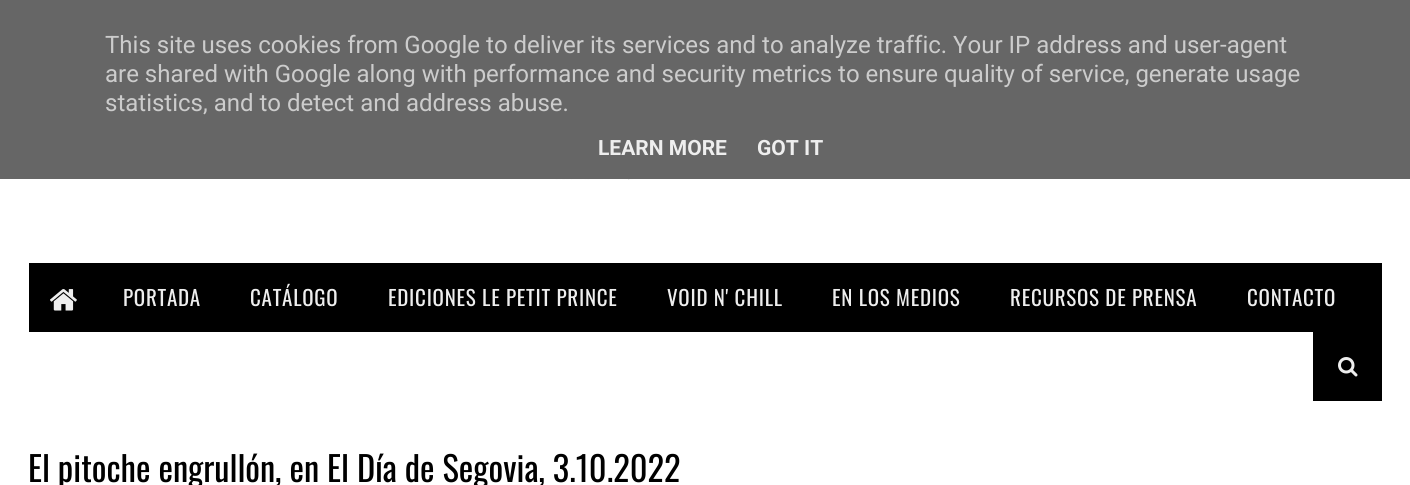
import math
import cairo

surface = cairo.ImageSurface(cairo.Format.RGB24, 1410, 485)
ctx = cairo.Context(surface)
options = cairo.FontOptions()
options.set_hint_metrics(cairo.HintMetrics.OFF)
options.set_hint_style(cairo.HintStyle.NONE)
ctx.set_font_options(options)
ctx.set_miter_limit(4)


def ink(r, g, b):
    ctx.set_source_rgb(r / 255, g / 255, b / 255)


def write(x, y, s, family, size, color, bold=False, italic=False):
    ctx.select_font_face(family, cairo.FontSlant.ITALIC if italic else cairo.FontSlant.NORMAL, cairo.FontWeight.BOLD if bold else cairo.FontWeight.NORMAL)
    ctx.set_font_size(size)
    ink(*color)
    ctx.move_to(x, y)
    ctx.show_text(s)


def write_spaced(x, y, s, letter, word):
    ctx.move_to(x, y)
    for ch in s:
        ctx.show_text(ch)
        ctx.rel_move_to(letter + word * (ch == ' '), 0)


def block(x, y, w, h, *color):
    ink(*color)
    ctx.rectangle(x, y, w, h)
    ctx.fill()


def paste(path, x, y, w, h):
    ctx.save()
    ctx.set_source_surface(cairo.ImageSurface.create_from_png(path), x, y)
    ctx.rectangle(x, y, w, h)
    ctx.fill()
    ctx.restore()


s1 = dict(family="Roboto", size=24, color=(204, 204, 204))
s2 = dict(family="Roboto", size=21, color=(238, 238, 238), bold=True)
s3 = dict(family="Oswald", size=34.5, color=(0, 0, 0))

ink(255, 255, 255)
ctx.paint()
block(0, 0, 1410, 179, 102, 102, 102)
write(105, 53, "This site uses cookies from Google to deliver its services and to analyze traffic. Your IP address and user-agent", **s1)
write(105, 82, "are shared with Google along with performance and security metrics to ensure quality of service, generate usage", **s1)
write(105, 111, "statistics, and to detect and address abuse.", **s1)
write(598, 155, "LEARN MORE", **s2)
write(757, 155, "GOT IT", **s2)
paste("pic1.png", 540, 179, 221, 1)
block(29, 263, 1353, 69, 0, 0, 0)
paste("pic2.png", 50, 289, 27, 22)
ctx.select_font_face("Oswald")
ink(238, 238, 238)
write_spaced(123, 306, "PORTADA", 0.75, 0)
write_spaced(250, 306, "CATÁLOGO", 0.75, 0)
write_spaced(388, 306, "EDICIONES LE PETIT PRINCE", 0.75, 0)
write_spaced(667, 306, "VOID N' CHILL", 0.75, 0)
write_spaced(832, 306, "EN LOS MEDIOS", 0.75, 0)
write_spaced(1010, 306, "RECURSOS DE PRENSA", 0.75, 0)
write_spaced(1247, 306, "CONTACTO", 0.75, 0)
block(1313, 332, 69, 69, 0, 0, 0)
paste("pic3.png", 1338, 357, 20, 20)
write(28, 482, "El pitoche engrullón, en El Día de Segovia, 3.10.2022", **s3)
surface.write_to_png("screenshot.png")
